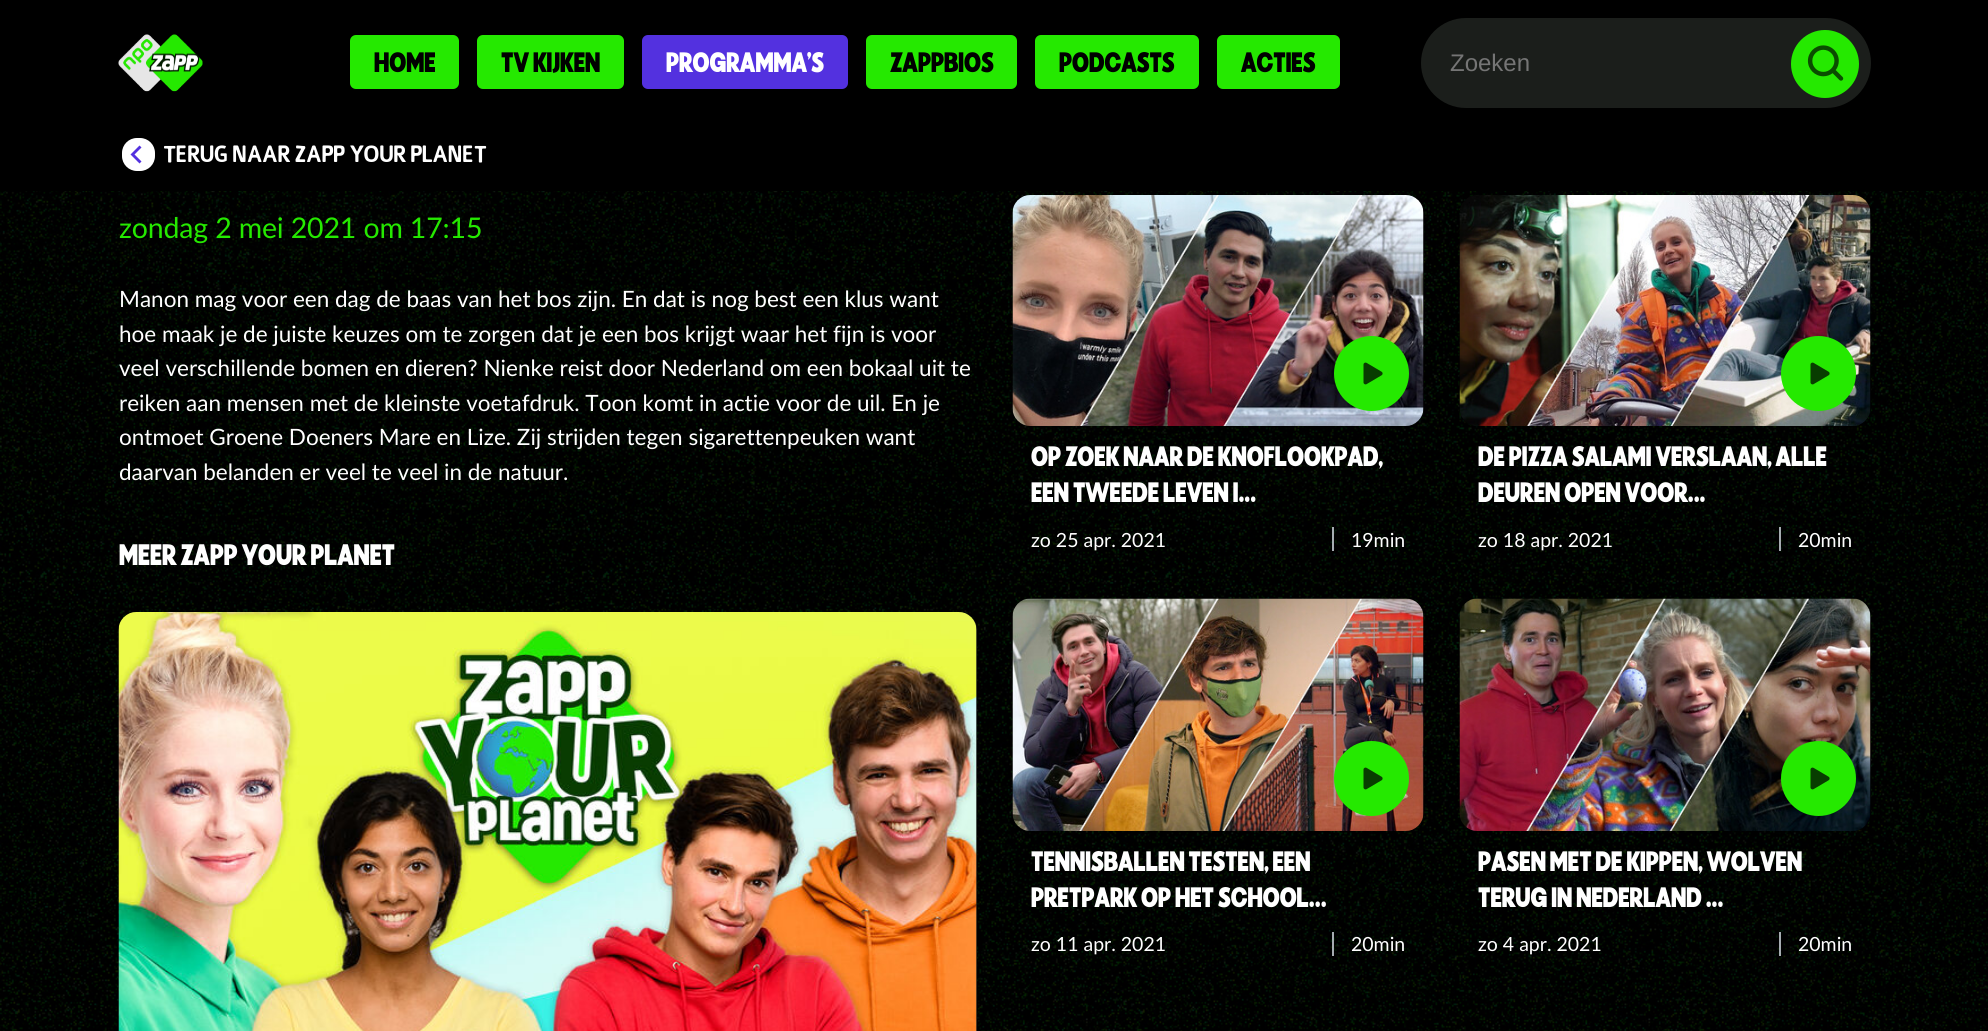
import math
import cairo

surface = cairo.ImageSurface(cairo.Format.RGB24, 1988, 1031)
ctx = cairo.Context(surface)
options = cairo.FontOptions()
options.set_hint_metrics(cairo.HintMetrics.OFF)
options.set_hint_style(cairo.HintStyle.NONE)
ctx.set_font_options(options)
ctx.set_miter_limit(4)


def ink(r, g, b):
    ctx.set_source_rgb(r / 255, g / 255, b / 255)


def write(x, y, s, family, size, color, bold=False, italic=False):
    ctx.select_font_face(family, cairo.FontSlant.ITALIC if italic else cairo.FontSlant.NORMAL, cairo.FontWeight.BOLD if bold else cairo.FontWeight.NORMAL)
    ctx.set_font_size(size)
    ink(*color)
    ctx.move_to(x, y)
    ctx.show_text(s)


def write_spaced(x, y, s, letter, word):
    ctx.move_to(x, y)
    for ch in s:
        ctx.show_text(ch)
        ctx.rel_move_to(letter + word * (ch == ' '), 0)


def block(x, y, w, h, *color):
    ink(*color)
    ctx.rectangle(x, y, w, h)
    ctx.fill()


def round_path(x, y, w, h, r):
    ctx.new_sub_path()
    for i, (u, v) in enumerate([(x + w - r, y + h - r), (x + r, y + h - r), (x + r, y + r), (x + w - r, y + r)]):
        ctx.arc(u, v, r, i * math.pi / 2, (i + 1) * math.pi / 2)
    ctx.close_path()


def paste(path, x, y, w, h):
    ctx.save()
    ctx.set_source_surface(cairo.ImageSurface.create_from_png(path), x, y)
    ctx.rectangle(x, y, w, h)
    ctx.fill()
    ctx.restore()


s1 = dict(family="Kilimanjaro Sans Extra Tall", size=27, color=(0, 0, 0))
s2 = dict(family="Kilimanjaro Sans Extra Tall", size=27, color=(255, 255, 255))
s3 = dict(family="Liberation Sans", size=24, color=(117, 117, 117))
s4 = dict(family="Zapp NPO", size=22.5, color=(255, 255, 255))
s5 = dict(family="Lato", size=22.5, color=(255, 255, 255))
s6 = dict(family="Kilimanjaro Sans Extra Tall", size=28.5, color=(255, 255, 255))
s7 = dict(family="Lato", size=19.5, color=(255, 255, 255))

ink(255, 255, 255)
ctx.paint()
paste("pic1.png", 0, 191, 1988, 840)
block(0, 0, 1988, 191, 0, 0, 0)
paste("pic2.png", 118, 34, 85, 58)
ink(37, 233, 0)
round_path(350, 35, 109, 54, 6)
ctx.fill()
write(374, 72, "HOME", **s1)
ink(37, 233, 0)
round_path(477, 35, 147, 54, 6)
ctx.fill()
write(501, 72, "TV KIJKEN", **s1)
ink(83, 49, 223)
round_path(642, 35, 206, 54, 6)
ctx.fill()
write(666, 72, "PROGRAMMA'S", **s2)
ink(37, 233, 0)
round_path(866, 35, 151, 54, 6)
ctx.fill()
write(890, 72, "ZAPPBIOS", **s1)
ink(37, 233, 0)
round_path(1035, 35, 164, 54, 6)
ctx.fill()
write(1059, 72, "PODCASTS", **s1)
ink(37, 233, 0)
round_path(1217, 35, 123, 54, 6)
ctx.fill()
write(1241, 72, "ACTIES", **s1)
ink(27, 30, 27)
round_path(1421, 18, 450, 90, 45)
ctx.fill()
write(1450, 71, "Zoeken", **s3)
ink(37, 233, 0)
ctx.new_path()
ctx.arc(1825, 64, 34, 0, 2 * math.pi)
ctx.fill()
paste("pic3.png", 1807, 45, 37, 36)
ink(255, 255, 255)
round_path(122, 138, 33, 33, 15)
ctx.fill()
ink(83, 49, 223)
ctx.new_path()
ctx.move_to(141.5, 147.5)
ctx.line_to(139.5, 145.5)
ctx.line_to(130.5, 154.5)
ctx.line_to(139.5, 163.5)
ctx.line_to(141.5, 161.5)
ctx.line_to(134.5, 154.5)
ctx.close_path()
ctx.fill()
write(164, 162, "TERUG NAAR ZAPP YOUR PLANET", **s4)
ctx.select_font_face("Lato")
ctx.set_font_size(28.5)
ink(37, 233, 0)
write_spaced(119, 238, "zondag 2 mei 2021 om 17:15", -0.15, 0)
write(119, 307, "Manon mag voor een dag de baas van het bos zijn. En dat is nog best een klus want", **s5)
write(119, 342, "hoe maak je de juiste keuzes om te zorgen dat je een bos krijgt waar het fijn is voor", **s5)
write(119, 376, "veel verschillende bomen en dieren? Nienke reist door Nederland om een bokaal uit te", **s5)
write(119, 411, "reiken aan mensen met de kleinste voetafdruk. Toon komt in actie voor de uil. En je", **s5)
write(119, 445, "ontmoet Groene Doeners Mare en Lize. Zij strijden tegen sigarettenpeuken want", **s5)
write(119, 480, "daarvan belanden er veel te veel in de natuur.", **s5)
write(119, 565, "MEER ZAPP YOUR PLANET", **s6)
ink(27, 30, 27)
round_path(119, 612, 858, 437, 18)
ctx.fill()
paste("pic4.png", 118, 612, 859, 419)
ink(0, 0, 0)
round_path(1013, 195, 411, 231, 18)
ctx.fill()
paste("pic5.png", 1012, 195, 412, 231)
ink(37, 233, 0)
ctx.arc(1371.5, 373.5, 37.5, 0, 2 * math.pi)
ctx.fill()
paste("pic6.png", 1363, 362, 20, 23)
write(1031, 466, "OP ZOEK NAAR DE KNOFLOOKPAD,", **s2)
write(1031, 502, "EEN TWEEDE LEVEN I...", **s2)
write(1031, 547, "zo 25 apr. 2021", **s7)
block(1332, 527, 2, 24, 165, 172, 177)
write(1351, 547, "19min", **s7)
ink(0, 0, 0)
round_path(1460, 195, 411, 231, 18)
ctx.fill()
paste("pic7.png", 1459, 195, 412, 231)
ink(37, 233, 0)
ctx.arc(1818.5, 373.5, 37.5, 0, 2 * math.pi)
ctx.fill()
paste("pic6.png", 1810, 362, 20, 23)
write(1478, 466, "DE PIZZA SALAMI VERSLAAN, ALLE", **s2)
write(1478, 502, "DEUREN OPEN VOOR...", **s2)
write(1478, 547, "zo 18 apr. 2021", **s7)
block(1779, 527, 2, 24, 165, 172, 177)
write(1798, 547, "20min", **s7)
ink(0, 0, 0)
round_path(1013, 599, 411, 232, 18)
ctx.fill()
paste("pic8.png", 1012, 598, 412, 233)
ink(37, 233, 0)
ctx.arc(1371.5, 778.5, 37.5, 0, 2 * math.pi)
ctx.fill()
paste("pic6.png", 1363, 767, 20, 23)
write(1031, 871, "TENNISBALLEN TESTEN, EEN", **s2)
write(1031, 907, "PRETPARK OP HET SCHOOL...", **s2)
write(1031, 951, "zo 11 apr. 2021", **s7)
block(1332, 932, 2, 24, 165, 172, 177)
write(1351, 951, "20min", **s7)
ink(0, 0, 0)
round_path(1460, 599, 411, 232, 18)
ctx.fill()
paste("pic9.png", 1459, 598, 412, 233)
ink(37, 233, 0)
ctx.arc(1818.5, 778.5, 37.5, 0, 2 * math.pi)
ctx.fill()
paste("pic6.png", 1810, 767, 20, 23)
write(1478, 871, "PASEN MET DE KIPPEN, WOLVEN", **s2)
write(1478, 907, "TERUG IN NEDERLAND ...", **s2)
write(1478, 951, "zo 4 apr. 2021", **s7)
block(1779, 932, 2, 24, 165, 172, 177)
write(1798, 951, "20min", **s7)
surface.write_to_png("screenshot.png")
